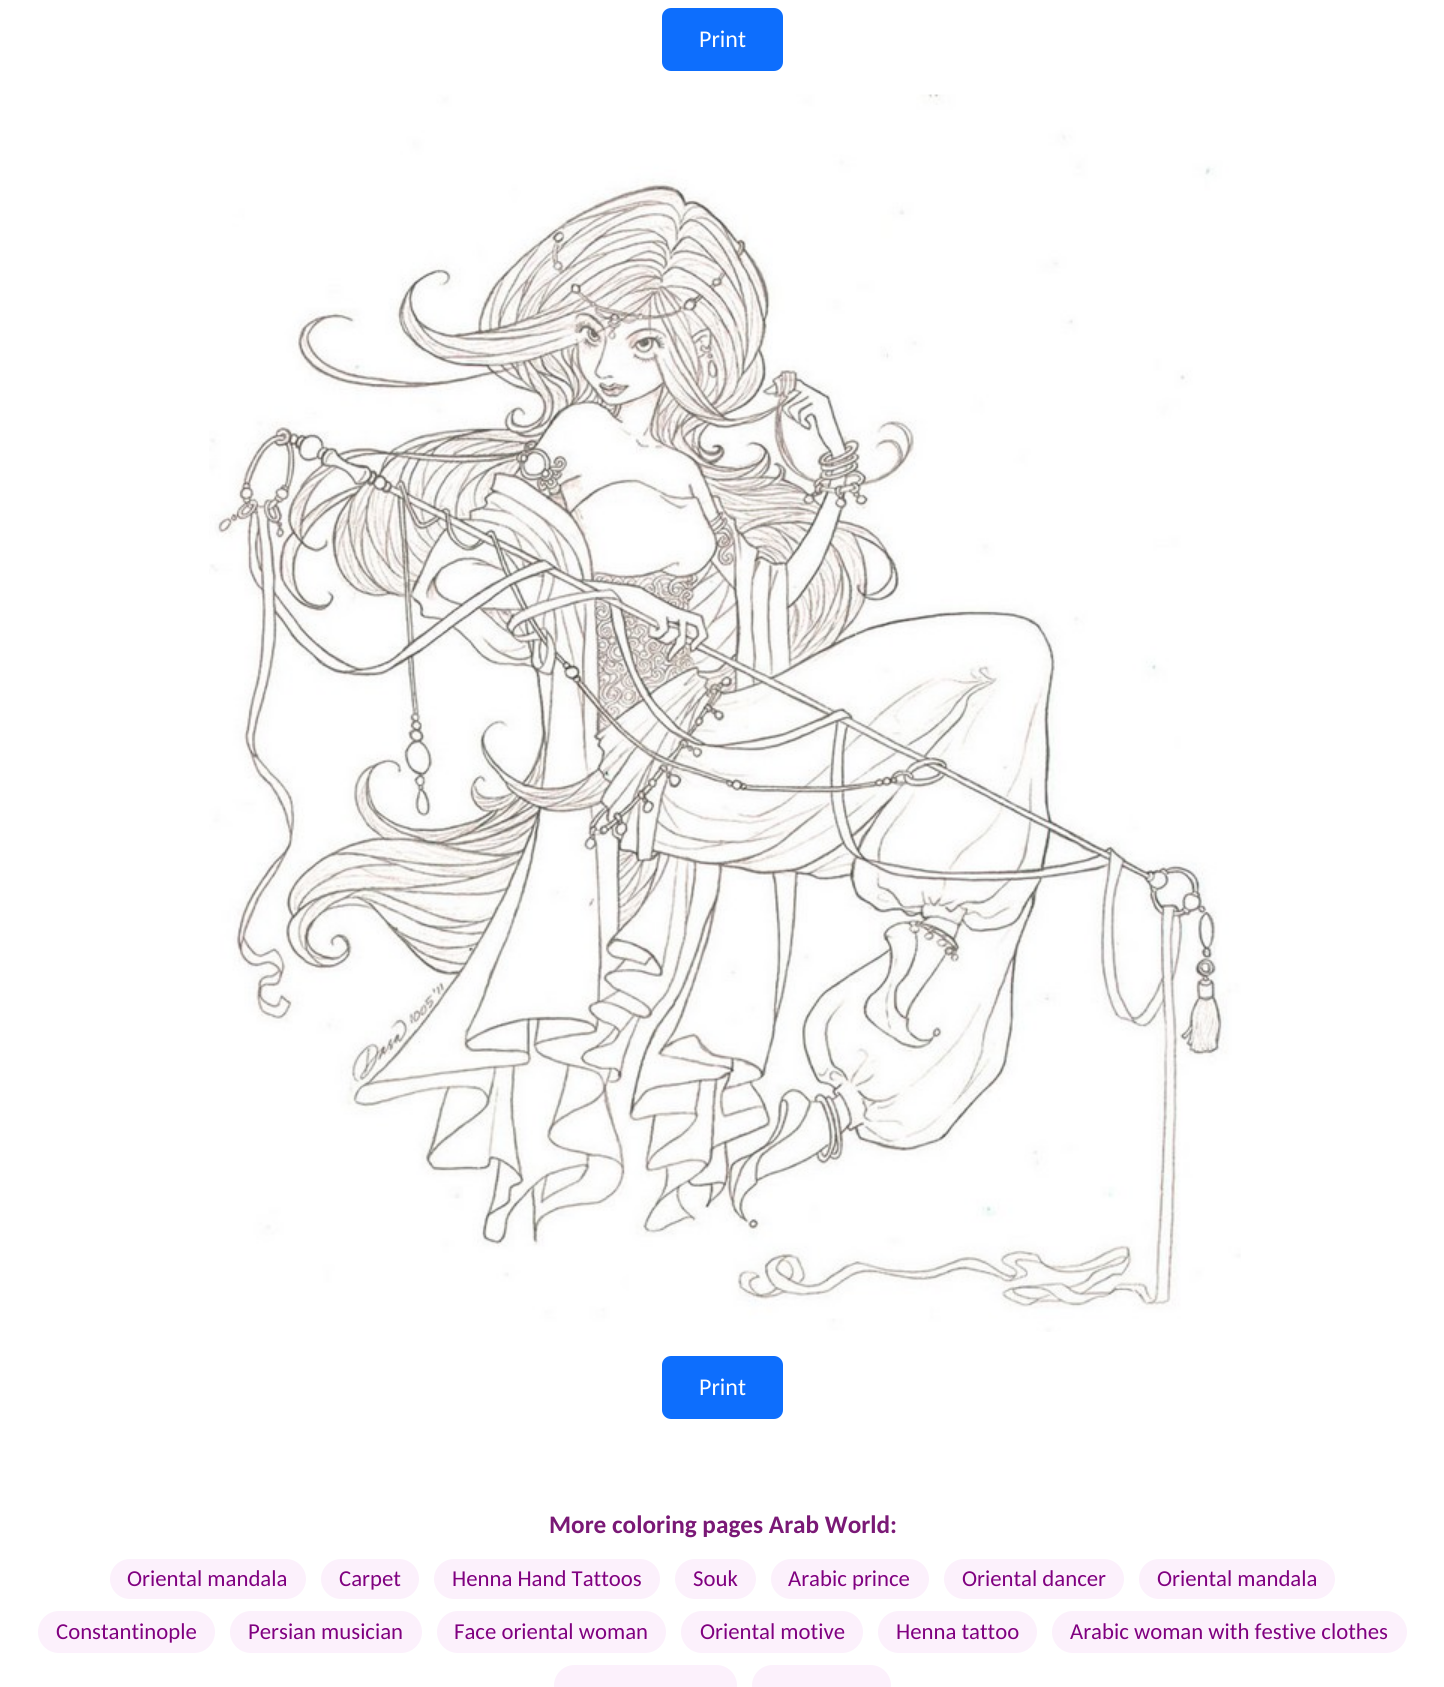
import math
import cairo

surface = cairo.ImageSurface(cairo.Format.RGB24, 1444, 1687)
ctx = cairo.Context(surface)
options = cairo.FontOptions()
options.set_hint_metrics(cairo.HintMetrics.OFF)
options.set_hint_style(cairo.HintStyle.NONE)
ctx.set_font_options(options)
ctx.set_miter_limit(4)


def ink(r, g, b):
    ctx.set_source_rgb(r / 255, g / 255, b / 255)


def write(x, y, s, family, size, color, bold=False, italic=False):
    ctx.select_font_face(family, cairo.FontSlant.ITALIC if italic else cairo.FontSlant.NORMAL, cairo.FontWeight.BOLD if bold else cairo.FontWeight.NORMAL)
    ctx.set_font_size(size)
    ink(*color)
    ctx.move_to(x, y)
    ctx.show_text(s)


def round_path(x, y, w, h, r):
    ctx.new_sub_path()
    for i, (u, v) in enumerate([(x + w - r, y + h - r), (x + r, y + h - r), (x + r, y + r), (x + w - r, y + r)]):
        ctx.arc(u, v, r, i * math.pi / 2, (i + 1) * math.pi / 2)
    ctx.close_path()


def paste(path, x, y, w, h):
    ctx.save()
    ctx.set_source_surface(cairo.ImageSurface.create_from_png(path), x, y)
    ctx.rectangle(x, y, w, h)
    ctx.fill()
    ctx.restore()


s1 = dict(family="Carlito", size=24, color=(255, 255, 255))
s2 = dict(family="Carlito", size=25.25, color=(122, 25, 118), bold=True)
s3 = dict(family="Carlito", size=22.75, color=(128, 0, 128))

ink(255, 255, 255)
ctx.paint()
ink(13, 110, 253)
round_path(663, 9, 119, 61, 8)
ctx.fill_preserve()
ctx.stroke()
write(699, 47, "Print", **s1)
paste("pic1.png", 209, 94, 1032, 1238)
ink(13, 110, 253)
round_path(663, 1357, 119, 61, 8)
ctx.fill_preserve()
ctx.stroke()
write(699, 1395, "Print", **s1)
write(549, 1533, "More coloring pages Arab World:", **s2)
ink(252, 241, 252)
round_path(110, 1559, 196, 40, 20)
ctx.fill()
write(127, 1586, "Oriental mandala", **s3)
ink(252, 241, 252)
round_path(321, 1559, 98, 40, 20)
ctx.fill()
write(339, 1586, "Carpet", **s3)
ink(252, 241, 252)
round_path(434, 1559, 226, 40, 20)
ctx.fill()
write(452, 1586, "Henna Hand Tattoos", **s3)
ink(252, 241, 252)
round_path(675, 1559, 81, 40, 20)
ctx.fill()
write(693, 1586, "Souk", **s3)
ink(252, 241, 252)
round_path(771, 1559, 158, 40, 20)
ctx.fill()
write(788, 1586, "Arabic prince", **s3)
ink(252, 241, 252)
round_path(944, 1559, 180, 40, 20)
ctx.fill()
write(962, 1586, "Oriental dancer", **s3)
ink(252, 241, 252)
round_path(1139, 1559, 196, 40, 20)
ctx.fill()
write(1157, 1586, "Oriental mandala", **s3)
ink(252, 241, 252)
round_path(38, 1611, 177, 42, 21)
ctx.fill()
write(56, 1639, "Constantinople", **s3)
ink(252, 241, 252)
round_path(230, 1611, 192, 42, 21)
ctx.fill()
write(248, 1639, "Persian musician", **s3)
ink(252, 241, 252)
round_path(437, 1611, 229, 42, 21)
ctx.fill()
write(454, 1639, "Face oriental woman", **s3)
ink(252, 241, 252)
round_path(681, 1611, 182, 42, 21)
ctx.fill()
write(700, 1639, "Oriental motive", **s3)
ink(252, 241, 252)
round_path(878, 1611, 159, 42, 21)
ctx.fill()
write(896, 1639, "Henna tattoo", **s3)
ink(252, 241, 252)
round_path(1052, 1611, 355, 42, 21)
ctx.fill()
write(1070, 1639, "Arabic woman with festive clothes", **s3)
ink(252, 241, 252)
round_path(554, 1665, 183, 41, 20.5)
ctx.fill()
round_path(752, 1665, 139, 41, 20.5)
ctx.fill()
surface.write_to_png("screenshot.png")
